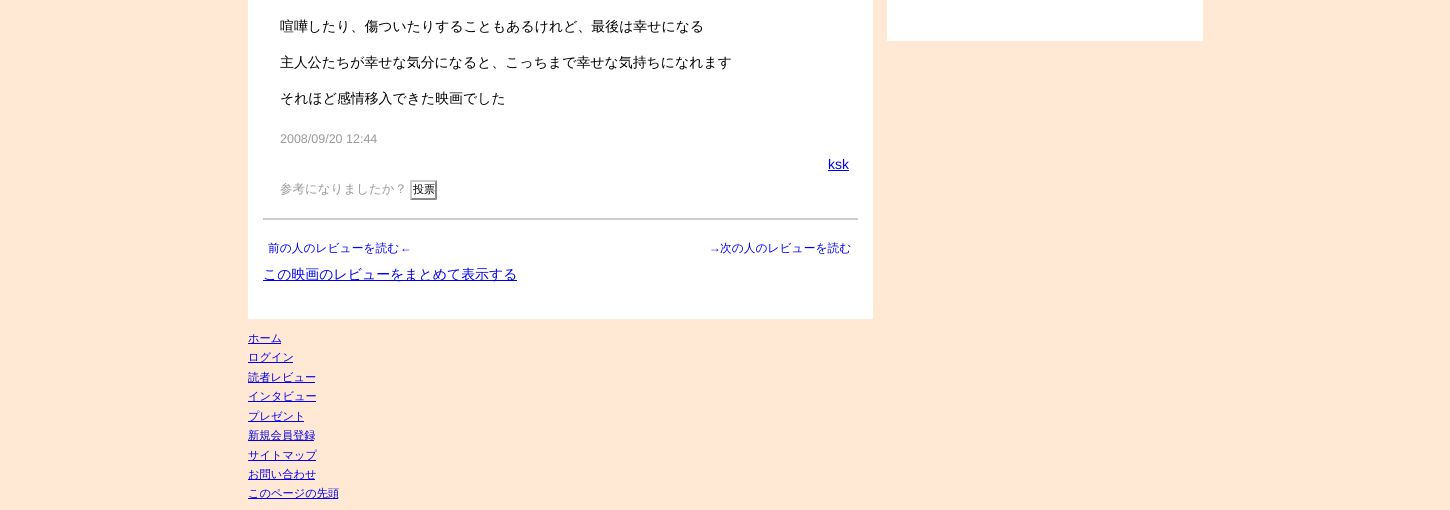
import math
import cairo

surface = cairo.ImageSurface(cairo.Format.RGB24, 1450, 510)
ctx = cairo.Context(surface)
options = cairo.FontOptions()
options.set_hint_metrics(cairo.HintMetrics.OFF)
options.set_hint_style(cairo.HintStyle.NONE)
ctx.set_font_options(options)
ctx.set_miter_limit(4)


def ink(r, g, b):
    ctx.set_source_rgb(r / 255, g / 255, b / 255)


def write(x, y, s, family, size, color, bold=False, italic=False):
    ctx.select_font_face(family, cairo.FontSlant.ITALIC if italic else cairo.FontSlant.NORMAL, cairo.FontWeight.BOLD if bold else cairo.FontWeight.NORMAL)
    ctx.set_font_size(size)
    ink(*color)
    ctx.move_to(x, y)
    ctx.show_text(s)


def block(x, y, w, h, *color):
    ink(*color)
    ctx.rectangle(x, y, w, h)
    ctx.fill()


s1 = dict(family="WenQuanYi Zen Hei Medium", size=13.9, color=(0, 0, 0))
s2 = dict(family="Liberation Sans", size=12.5, color=(153, 153, 153))
s3 = dict(family="Liberation Sans", size=13.9, color=(0, 0, 238))
s4 = dict(family="WenQuanYi Zen Hei Medium", size=12.5, color=(153, 153, 153))
s5 = dict(family="WenQuanYi Zen Hei Medium", size=11, color=(0, 0, 0))
s6 = dict(family="WenQuanYi Zen Hei Medium", size=11.75, color=(0, 0, 255))
s7 = dict(family="Liberation Sans", size=11.75, color=(0, 0, 255))
s8 = dict(family="WenQuanYi Zen Hei Medium", size=13.9, color=(0, 0, 238))
s9 = dict(family="WenQuanYi Zen Hei Medium", size=11.25, color=(0, 0, 238))

ink(255, 233, 212)
ctx.paint()
block(248, 0, 625, 319, 255, 255, 255)
block(263, 218, 595, 2, 204, 204, 204)
write(280, 31, "喧嘩したり、傷ついたりすることもあるけれど、最後は幸せになる", **s1)
write(280, 67, "主人公たちが幸せな気分になると、こっちまで幸せな気持ちになれます", **s1)
write(280, 103, "それほど感情移入できた映画でした", **s1)
write(280, 143, "2008/09/20 12:44", **s2)
write(828, 169, "ksk", **s3)
block(828, 170, 21, 1, 0, 0, 238)
write(280, 193, "参考になりましたか？", **s4)
ink(204, 204, 204)
ctx.new_path()
ctx.move_to(410, 180)
ctx.line_to(437, 180)
ctx.line_to(435, 182)
ctx.line_to(412, 182)
ctx.close_path()
ctx.fill()
ink(136, 136, 136)
ctx.new_path()
ctx.move_to(437, 180)
ctx.line_to(437, 200)
ctx.line_to(435, 198)
ctx.line_to(435, 182)
ctx.close_path()
ctx.fill()
ctx.new_path()
ctx.move_to(437, 200)
ctx.line_to(410, 200)
ctx.line_to(412, 198)
ctx.line_to(435, 198)
ctx.close_path()
ctx.fill()
ink(204, 204, 204)
ctx.new_path()
ctx.move_to(410, 200)
ctx.line_to(410, 180)
ctx.line_to(412, 182)
ctx.line_to(412, 198)
ctx.close_path()
ctx.fill()
write(413, 193, "投票", **s5)
write(268, 252, "前の人のレビューを読む", **s6)
write(400, 252, "←", **s7)
write(709, 252, "→", **s7)
write(720, 252, "次の人のレビューを読む", **s6)
block(263, 280, 254, 1, 0, 0, 238)
write(263, 279, "この映画のレビューをまとめて表示する", **s8)
block(887, 0, 316, 41, 255, 255, 255)
block(248, 343, 33, 1, 0, 0, 238)
write(248, 342, "ホーム", **s9)
block(248, 362, 45, 1, 0, 0, 238)
write(248, 361, "ログイン", **s9)
block(248, 382, 67, 1, 0, 0, 238)
write(248, 381, "読者レビュー", **s9)
block(248, 401, 68, 1, 0, 0, 238)
write(248, 400, "インタビュー", **s9)
block(248, 421, 56, 1, 0, 0, 238)
write(248, 420, "プレゼント", **s9)
block(248, 440, 66, 1, 0, 0, 238)
write(248, 439, "新規会員登録", **s9)
block(248, 460, 68, 1, 0, 0, 238)
write(248, 459, "サイトマップ", **s9)
block(248, 479, 67, 1, 0, 0, 238)
write(248, 478, "お問い合わせ", **s9)
block(248, 498, 90, 1, 0, 0, 238)
write(248, 497, "このページの先頭", **s9)
surface.write_to_png("screenshot.png")
